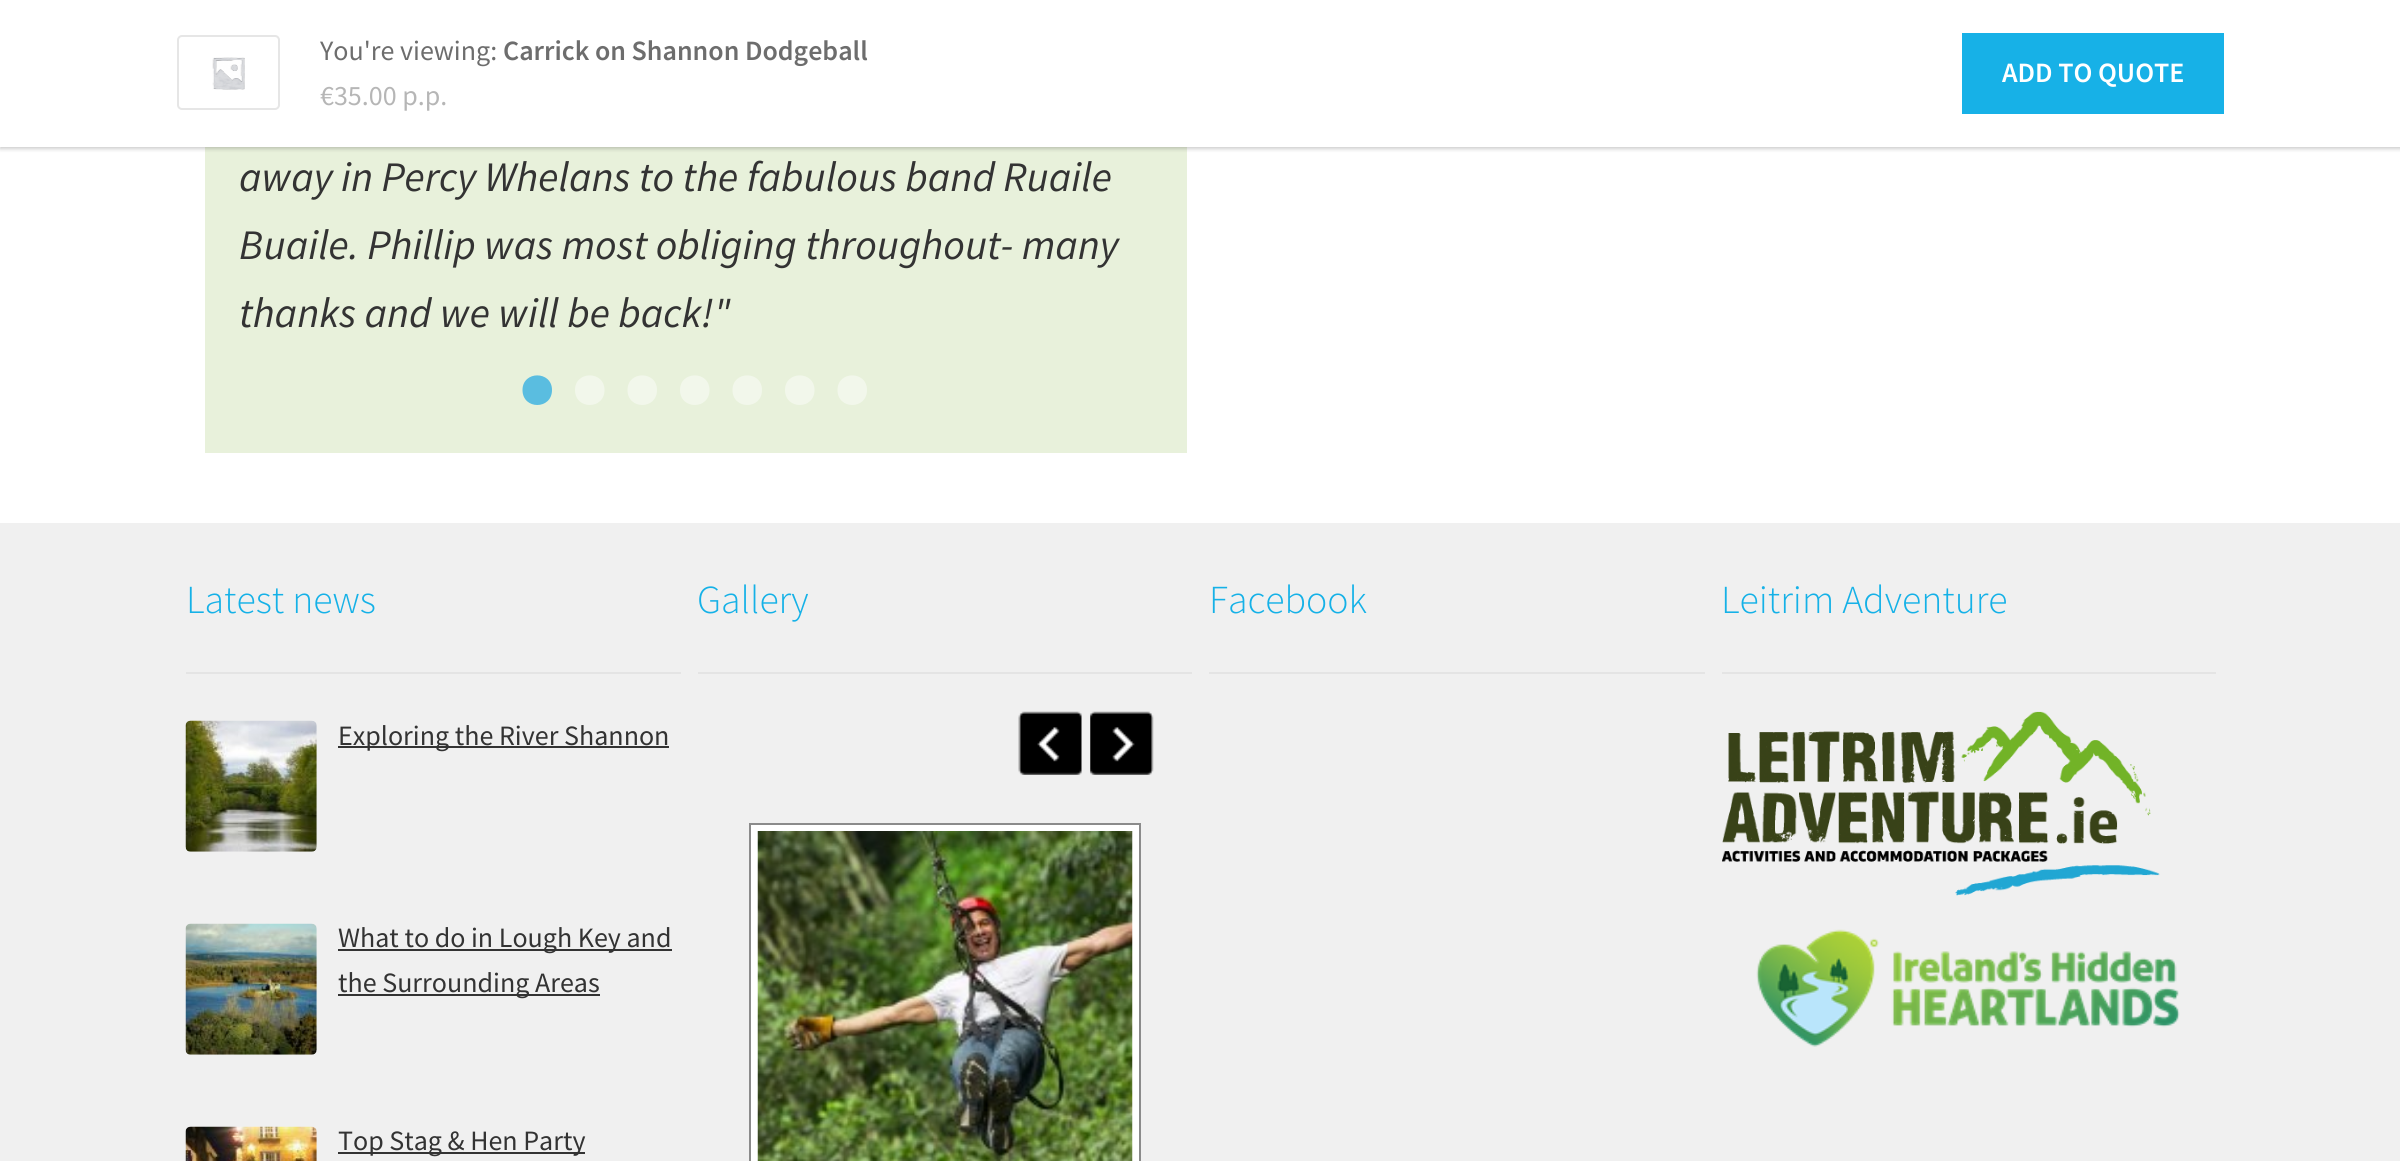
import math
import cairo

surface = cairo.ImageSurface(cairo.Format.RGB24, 2400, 1161)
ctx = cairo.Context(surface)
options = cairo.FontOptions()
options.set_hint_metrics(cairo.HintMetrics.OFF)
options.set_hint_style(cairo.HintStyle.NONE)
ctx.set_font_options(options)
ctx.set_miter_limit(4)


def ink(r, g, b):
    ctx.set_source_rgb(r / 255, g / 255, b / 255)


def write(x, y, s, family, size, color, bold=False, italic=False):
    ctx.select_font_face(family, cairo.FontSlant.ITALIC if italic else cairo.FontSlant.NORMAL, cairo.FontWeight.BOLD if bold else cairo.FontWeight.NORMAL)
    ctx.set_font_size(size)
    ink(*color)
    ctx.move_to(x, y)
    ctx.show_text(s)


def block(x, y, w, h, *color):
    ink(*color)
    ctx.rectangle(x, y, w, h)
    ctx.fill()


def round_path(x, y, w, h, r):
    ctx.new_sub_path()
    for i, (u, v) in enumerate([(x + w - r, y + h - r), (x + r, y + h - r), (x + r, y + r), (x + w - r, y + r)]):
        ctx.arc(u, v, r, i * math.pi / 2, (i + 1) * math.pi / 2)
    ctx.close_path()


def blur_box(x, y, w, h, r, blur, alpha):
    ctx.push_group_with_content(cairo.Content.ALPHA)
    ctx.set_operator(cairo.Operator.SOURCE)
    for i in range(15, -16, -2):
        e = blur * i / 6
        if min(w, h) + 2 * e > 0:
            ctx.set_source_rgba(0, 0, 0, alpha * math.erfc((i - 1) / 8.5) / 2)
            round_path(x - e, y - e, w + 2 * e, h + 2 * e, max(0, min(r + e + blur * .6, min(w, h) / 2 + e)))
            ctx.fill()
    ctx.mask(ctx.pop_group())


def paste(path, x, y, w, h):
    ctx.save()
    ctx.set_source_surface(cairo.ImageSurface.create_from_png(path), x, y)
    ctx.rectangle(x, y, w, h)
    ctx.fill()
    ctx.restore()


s1 = dict(family="Source Sans Pro", size=28, color=(109, 109, 109))
s2 = dict(family="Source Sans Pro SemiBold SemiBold", size=28, color=(109, 109, 109))
s3 = dict(family="Source Sans Pro", size=28, color=(182, 182, 182))
s4 = dict(family="Source Sans Pro SemiBold SemiBold", size=28, color=(255, 255, 255))
s5 = dict(family="Source Sans Pro", size=42, color=(51, 51, 51), italic=True)
s6 = dict(family="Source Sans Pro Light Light", size=39.75, color=(21, 177, 231))
s7 = dict(family="Source Sans Pro", size=28, color=(51, 51, 51))

ink(255, 255, 255)
ctx.paint()
block(205, 147, 982, 306, 232, 241, 219)
ink(0, 0, 0)
blur_box(0, 2, 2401, 147, 0, 2, 0.2)
block(0, 0, 2400, 147, 255, 255, 255)
round_path(178, 36, 101, 73, 4)
ink(230, 230, 230)
ctx.stroke()
paste("pic1.png", 212, 57, 33, 33)
write(320, 60, "You're viewing:", **s1)
write(503, 60, "Carrick on Shannon Dodgeball", **s2)
write(320, 105, "€35.00 p.p.", **s3)
block(1962, 33, 262, 81, 23, 177, 231)
write(2002, 82, "ADD TO QUOTE", **s4)
write(239, 191, "away in Percy Whelans to the fabulous band Ruaile", **s5)
write(239, 259, "Buaile. Phillip was most obliging throughout- many", **s5)
write(239, 327, "thanks and we will be back!\"", **s5)
ink(90, 189, 224)
ctx.new_path()
ctx.move_to(552, 390)
ctx.curve_to(552, 370.5, 522.5, 370.5, 522.5, 390)
ctx.curve_to(522.5, 410, 552, 410, 552, 390)
ctx.close_path()
ctx.fill()
ink(242, 247, 235)
ctx.new_path()
ctx.move_to(604.5, 390)
ctx.curve_to(604.5, 370.5, 575, 370.5, 575, 390)
ctx.curve_to(575, 410, 604.5, 410, 604.5, 390)
ctx.close_path()
ctx.fill()
ctx.new_path()
ctx.move_to(657, 390)
ctx.curve_to(657, 370.5, 627.5, 370.5, 627.5, 390)
ctx.curve_to(627.5, 410, 657, 410, 657, 390)
ctx.close_path()
ctx.fill()
ctx.new_path()
ctx.move_to(709.5, 390)
ctx.curve_to(709.5, 370.5, 680, 370.5, 680, 390)
ctx.curve_to(680, 410, 709.5, 410, 709.5, 390)
ctx.close_path()
ctx.fill()
ctx.new_path()
ctx.move_to(762, 390)
ctx.curve_to(762, 370.5, 732.5, 370.5, 732.5, 390)
ctx.curve_to(732.5, 410, 762, 410, 762, 390)
ctx.close_path()
ctx.fill()
ctx.new_path()
ctx.move_to(814.5, 390)
ctx.curve_to(814.5, 370.5, 785, 370.5, 785, 390)
ctx.curve_to(785, 410, 814.5, 410, 814.5, 390)
ctx.close_path()
ctx.fill()
ctx.new_path()
ctx.move_to(867, 390)
ctx.curve_to(867, 370.5, 837.5, 370.5, 837.5, 390)
ctx.curve_to(837.5, 410, 867, 410, 867, 390)
ctx.close_path()
ctx.fill()
block(0, 523, 2400, 638, 240, 240, 240)
block(186, 672, 495, 2, 228, 228, 228)
write(186, 613, "Latest news", **s6)
paste("pic2.png", 185, 720, 132, 132)
block(338, 746, 331, 2, 51, 51, 51)
write(338, 745, "Exploring the River Shannon", **s7)
paste("pic3.png", 185, 923, 132, 132)
block(338, 949, 334, 2, 51, 51, 51)
write(338, 947, "What to do in Lough Key and", **s7)
block(338, 994, 262, 2, 51, 51, 51)
write(338, 992, "the Surrounding Areas", **s7)
paste("pic4.png", 185, 1126, 132, 35)
block(338, 1152, 247, 2, 51, 51, 51)
write(338, 1150, "Top Stag & Hen Party", **s7)
block(698, 672, 494, 2, 228, 228, 228)
write(697, 613, "Gallery", **s6)
paste("pic5.png", 1018, 711, 64, 64)
paste("pic6.png", 1090, 711, 64, 64)
ctx.rectangle(754.5, 827.5, 381, 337)
ink(255, 255, 255)
ctx.set_line_width(7)
ctx.stroke()
ctx.rectangle(750, 824, 390, 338)
ink(139, 139, 139)
ctx.set_line_width(2)
ctx.stroke()
paste("pic7.png", 757, 831, 376, 330)
block(1209, 672, 496, 2, 228, 228, 228)
write(1209, 613, "Facebook", **s6)
block(1722, 672, 494, 2, 228, 228, 228)
write(1721, 613, "Leitrim Adventure", **s6)
paste("pic8.png", 1722, 711, 438, 185)
paste("pic9.png", 1756, 929, 424, 118)
surface.write_to_png("screenshot.png")
